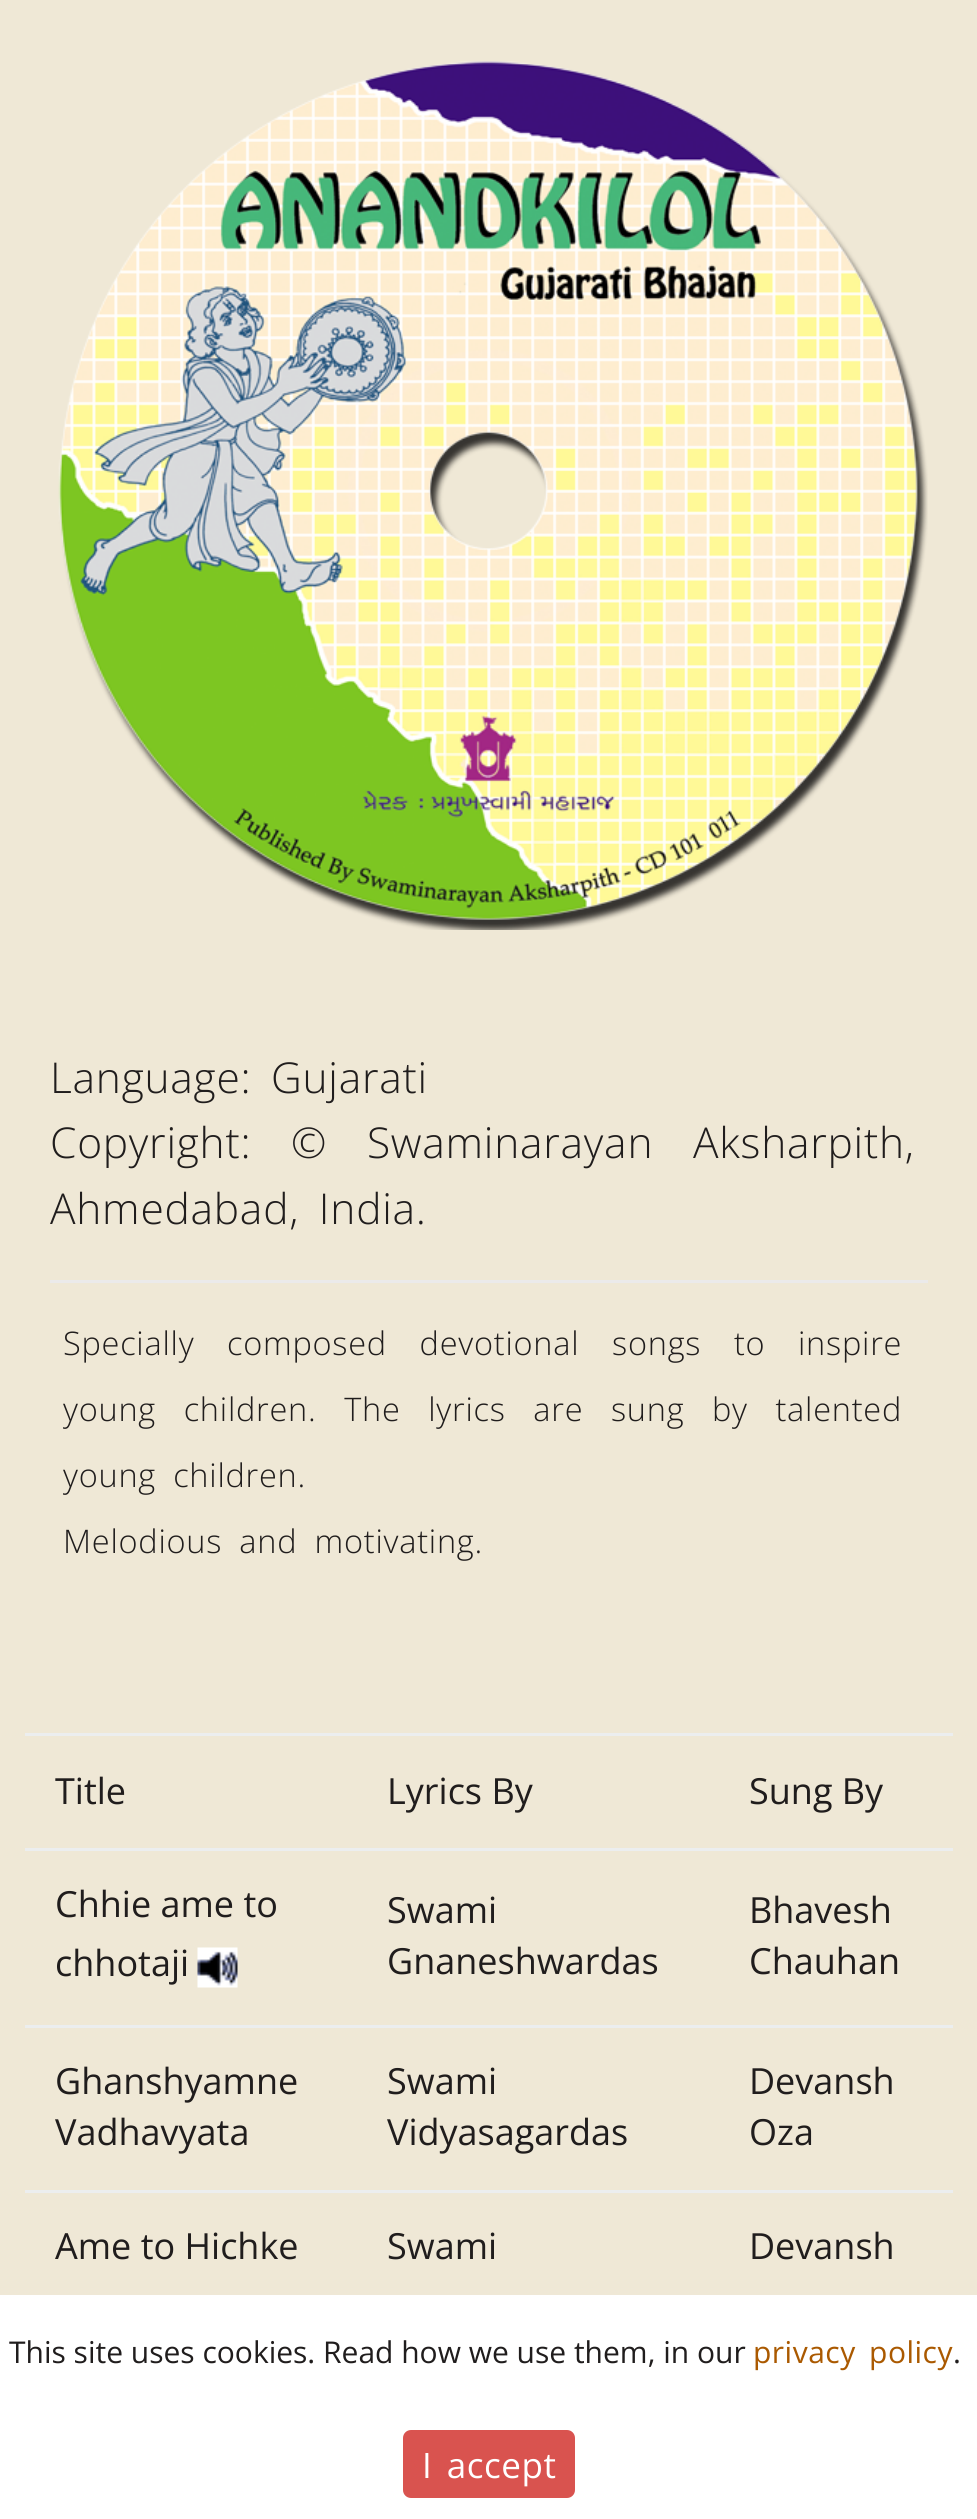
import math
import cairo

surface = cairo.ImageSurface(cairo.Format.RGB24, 977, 2519)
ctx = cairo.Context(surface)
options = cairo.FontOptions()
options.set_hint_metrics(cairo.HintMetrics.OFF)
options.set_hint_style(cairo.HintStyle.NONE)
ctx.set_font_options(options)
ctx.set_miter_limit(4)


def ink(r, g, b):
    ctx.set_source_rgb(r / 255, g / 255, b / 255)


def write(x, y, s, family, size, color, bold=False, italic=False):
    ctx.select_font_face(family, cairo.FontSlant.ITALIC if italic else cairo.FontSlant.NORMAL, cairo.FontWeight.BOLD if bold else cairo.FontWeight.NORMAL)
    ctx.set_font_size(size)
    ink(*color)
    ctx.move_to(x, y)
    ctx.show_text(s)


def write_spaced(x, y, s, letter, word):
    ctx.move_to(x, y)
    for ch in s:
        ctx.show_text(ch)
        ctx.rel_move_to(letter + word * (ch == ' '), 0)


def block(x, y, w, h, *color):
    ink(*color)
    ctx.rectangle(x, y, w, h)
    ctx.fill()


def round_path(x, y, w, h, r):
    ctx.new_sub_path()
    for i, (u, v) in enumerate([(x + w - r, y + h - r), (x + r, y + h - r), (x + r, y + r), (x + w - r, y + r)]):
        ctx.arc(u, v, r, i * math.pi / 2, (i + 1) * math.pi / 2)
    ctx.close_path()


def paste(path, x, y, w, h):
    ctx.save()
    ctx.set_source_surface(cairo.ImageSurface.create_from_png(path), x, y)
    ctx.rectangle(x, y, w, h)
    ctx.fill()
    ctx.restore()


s1 = dict(family="Open Sans", size=36, color=(32, 29, 29))
s2 = dict(family="Open Sans", size=30, color=(32, 29, 29))

ink(239, 232, 214)
ctx.paint()
paste("pic1.png", 58, 61, 870, 869)
ctx.select_font_face("Open Sans Light")
ctx.set_font_size(42.5)
ink(32, 29, 29)
write_spaced(50, 1093, "Language:", 0.75, 0)
write_spaced(271, 1093, "Gujarati", 0.75, 0)
write_spaced(50, 1158, "Copyright:", 0.75, 0)
write_spaced(291, 1158, "© Swaminarayan Aksharpith,", 0.75, 28)
write_spaced(50, 1224, "Ahmedabad, India.", 0.75, 8)
block(50, 1280, 878, 3, 235, 234, 234)
ctx.set_font_size(32.5)
ink(32, 29, 29)
write_spaced(63, 1355, "Specially composed devotional songs to inspire", 0.75, 23.5)
write_spaced(63, 1421, "young children. The lyrics are sung by talented", 0.75, 18.5)
write_spaced(63, 1487, "young children.", 0.75, 8)
write_spaced(63, 1553, "Melodious and motivating.", 0.75, 8)
write(55, 1804, "Title", **s1)
write(387, 1804, "Lyrics By", **s1)
block(25, 1733, 928, 3, 236, 238, 239)
write(749, 1804, "Sung By", **s1)
write(55, 1917, "Chhie ame to", **s1)
write(55, 1976, "chhotaji", **s1)
paste("pic2.png", 197, 1947, 41, 41)
write(387, 1923, "Swami", **s1)
write(387, 1974, "Gnaneshwardas", **s1)
block(25, 1848, 928, 3, 236, 238, 239)
write(749, 1923, "Bhavesh", **s1)
write(749, 1974, "Chauhan", **s1)
write(55, 2094, "Ghanshyamne", **s1)
write(55, 2145, "Vadhavyata", **s1)
write(387, 2094, "Swami", **s1)
write(387, 2145, "Vidyasagardas", **s1)
block(25, 2025, 928, 3, 236, 238, 239)
write(749, 2094, "Devansh", **s1)
write(749, 2145, "Oza", **s1)
write(55, 2259, "Ame to Hichke", **s1)
write(387, 2259, "Swami", **s1)
block(25, 2190, 928, 3, 236, 238, 239)
write(749, 2259, "Devansh", **s1)
block(0, 2295, 977, 224, 255, 255, 255)
write(9, 2363, "This site uses cookies. Read how we use them, in our", **s2)
ink(170, 89, 0)
write_spaced(753, 2363, "privacy policy", 0.5, 5)
write(953, 2363, ".", **s2)
ink(217, 83, 79)
round_path(403, 2430, 172, 68, 8)
ctx.fill()
ctx.set_font_size(35)
ink(255, 255, 255)
write_spaced(422, 2478, "I accept", 0.5, 5)
surface.write_to_png("screenshot.png")
